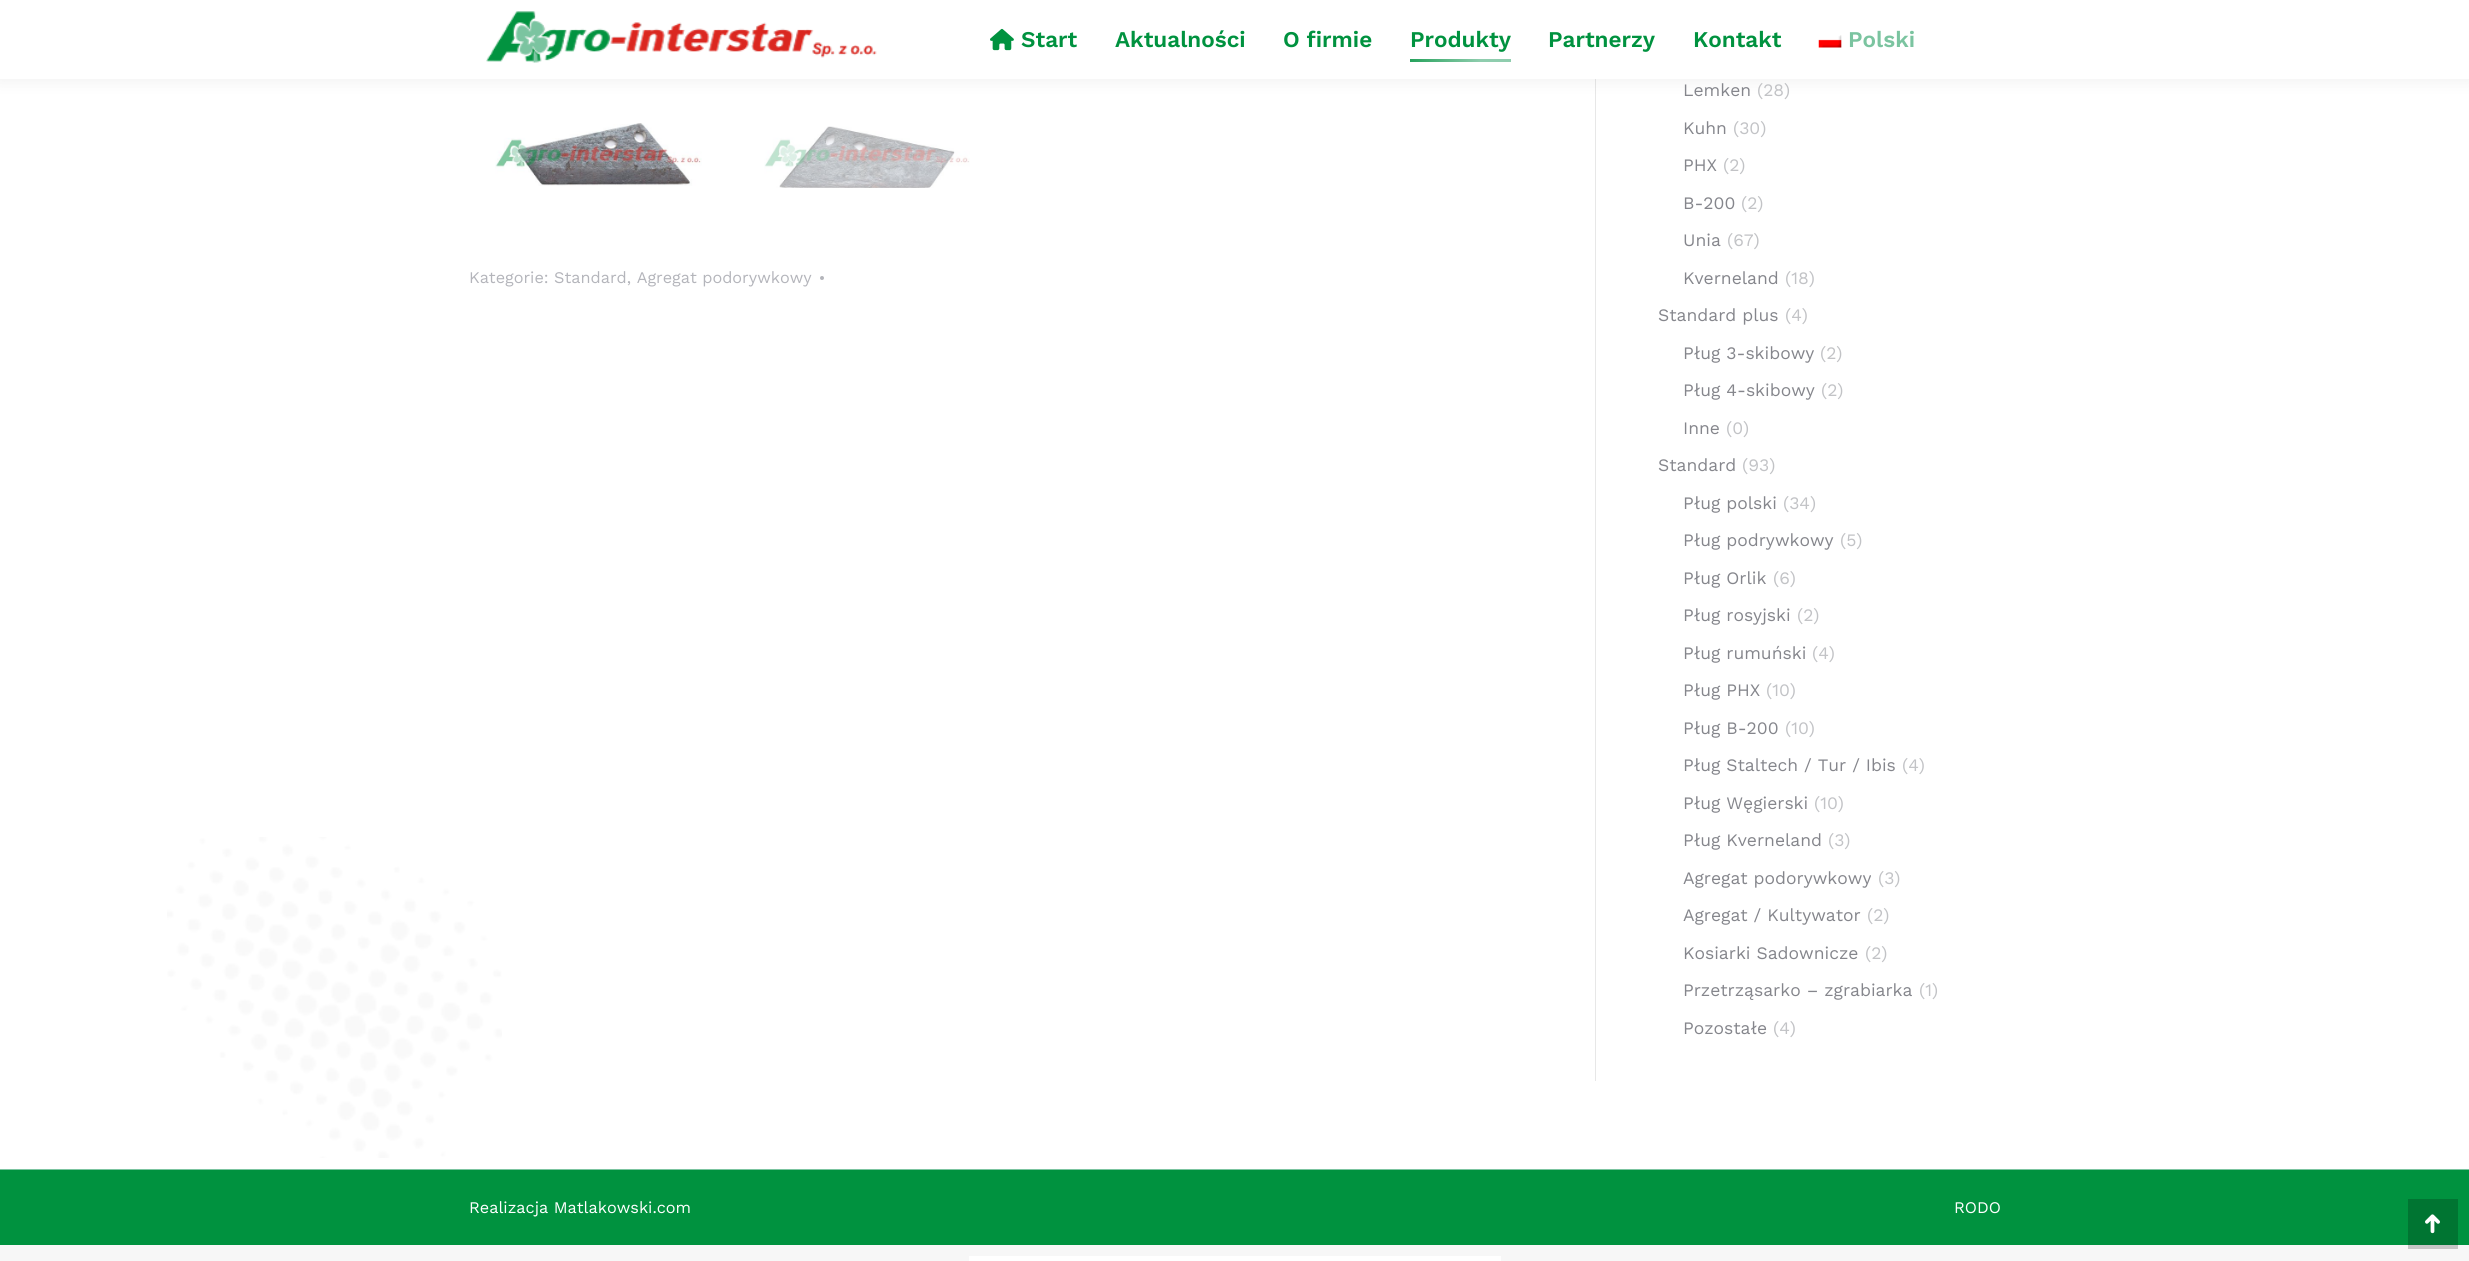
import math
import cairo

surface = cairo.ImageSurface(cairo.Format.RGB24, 2469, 1261)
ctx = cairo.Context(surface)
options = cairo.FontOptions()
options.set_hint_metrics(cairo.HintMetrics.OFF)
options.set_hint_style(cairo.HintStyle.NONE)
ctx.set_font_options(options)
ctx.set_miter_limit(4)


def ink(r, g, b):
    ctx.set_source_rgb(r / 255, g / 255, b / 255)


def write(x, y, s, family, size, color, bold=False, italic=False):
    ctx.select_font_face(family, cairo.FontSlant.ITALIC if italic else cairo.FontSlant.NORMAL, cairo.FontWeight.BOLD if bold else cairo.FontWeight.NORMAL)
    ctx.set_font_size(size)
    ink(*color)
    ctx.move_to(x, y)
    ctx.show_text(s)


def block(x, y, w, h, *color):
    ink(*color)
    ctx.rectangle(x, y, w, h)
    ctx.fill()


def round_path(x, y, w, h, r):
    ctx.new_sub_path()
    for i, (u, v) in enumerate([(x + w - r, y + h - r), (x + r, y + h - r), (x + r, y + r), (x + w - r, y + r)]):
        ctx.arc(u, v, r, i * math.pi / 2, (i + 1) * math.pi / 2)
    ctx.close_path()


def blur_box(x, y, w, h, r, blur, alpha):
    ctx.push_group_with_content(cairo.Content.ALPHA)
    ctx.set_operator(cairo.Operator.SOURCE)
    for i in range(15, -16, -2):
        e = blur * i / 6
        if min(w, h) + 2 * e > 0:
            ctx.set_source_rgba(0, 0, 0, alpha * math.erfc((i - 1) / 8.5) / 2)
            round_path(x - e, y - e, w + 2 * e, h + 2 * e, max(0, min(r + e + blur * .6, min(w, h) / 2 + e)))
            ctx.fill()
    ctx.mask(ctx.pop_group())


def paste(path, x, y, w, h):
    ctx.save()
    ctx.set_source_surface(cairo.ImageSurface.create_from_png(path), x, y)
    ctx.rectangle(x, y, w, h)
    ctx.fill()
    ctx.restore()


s1 = dict(family="Work Sans SemiBold", size=22.5, color=(0, 146, 63))
s2 = dict(family="Work Sans SemiBold", size=22.5, color=(123, 196, 160))
s3 = dict(family="Work Sans", size=16.25, color=(180, 181, 187))
s4 = dict(family="Work Sans", size=17.5, color=(133, 134, 140))
s5 = dict(family="Work Sans", size=17.5, color=(194, 195, 198))
s6 = dict(family="Work Sans", size=16.25, color=(255, 255, 255))

ink(247, 247, 247)
ctx.paint()
block(0, 79, 2469, 1090, 255, 255, 255)
block(1595, 79, 1, 1002, 231, 231, 231)
ink(0, 0, 0)
blur_box(-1, -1, 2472, 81, 0, 9.5, 0.07)
block(0, 0, 2469, 79, 255, 255, 255)
paste("pic1.png", 486, 11, 391, 52)
paste("pic2.png", 990, 28, 24, 23)
write(1021, 47, "Start", **s1)
write(1115, 47, "Aktualności", **s1)
write(1283, 47, "O firmie", **s1)
write(1410, 47, "Produkty", **s1)
gradient = cairo.LinearGradient(1511, 60, 1410, 60)
gradient.add_color_stop_rgba(0.3, 0.561, 0.804, 0.682, 1)
gradient.add_color_stop_rgba(1, 0.149, 0.635, 0.361, 1)
ctx.set_source(gradient)
ctx.rectangle(1410, 59, 101, 3)
ctx.fill()
write(1548, 47, "Partnerzy", **s1)
write(1693, 47, "Kontakt", **s1)
paste("pic3.png", 1818, 35, 24, 13)
write(1848, 47, "Polski", **s2)
paste("pic4.png", 167, 837, 335, 321)
paste("pic5.png", 495, 123, 207, 63)
paste("pic6.png", 764, 126, 206, 62)
write(469, 283, "Kategorie: Standard, Agregat podorywkowy", **s3)
ctx.new_path()
ctx.arc(822, 278, 2, 0, 2 * math.pi)
ctx.fill()
write(1683, 96, "Lemken", **s4)
write(1757, 96, "(28)", **s5)
write(1683, 134, "Kuhn", **s4)
write(1733, 134, "(30)", **s5)
write(1683, 171, "PHX", **s4)
write(1723, 171, "(2)", **s5)
write(1683, 209, "B-200", **s4)
write(1741, 209, "(2)", **s5)
write(1683, 246, "Unia", **s4)
write(1727, 246, "(67)", **s5)
write(1683, 284, "Kverneland", **s4)
write(1785, 284, "(18)", **s5)
write(1658, 321, "Standard plus", **s4)
write(1785, 321, "(4)", **s5)
write(1683, 359, "Pług 3-skibowy", **s4)
write(1820, 359, "(2)", **s5)
write(1683, 396, "Pług 4-skibowy", **s4)
write(1821, 396, "(2)", **s5)
write(1683, 434, "Inne", **s4)
write(1726, 434, "(0)", **s5)
write(1658, 471, "Standard", **s4)
write(1742, 471, "(93)", **s5)
write(1683, 509, "Pług polski", **s4)
write(1783, 509, "(34)", **s5)
write(1683, 546, "Pług podrywkowy", **s4)
write(1840, 546, "(5)", **s5)
write(1683, 584, "Pług Orlik", **s4)
write(1773, 584, "(6)", **s5)
write(1683, 621, "Pług rosyjski", **s4)
write(1797, 621, "(2)", **s5)
write(1683, 659, "Pług rumuński", **s4)
write(1812, 659, "(4)", **s5)
write(1683, 696, "Pług PHX", **s4)
write(1766, 696, "(10)", **s5)
write(1683, 734, "Pług B-200", **s4)
write(1785, 734, "(10)", **s5)
write(1683, 771, "Pług Staltech / Tur / Ibis", **s4)
write(1902, 771, "(4)", **s5)
write(1683, 809, "Pług Węgierski", **s4)
write(1814, 809, "(10)", **s5)
write(1683, 846, "Pług Kverneland", **s4)
write(1828, 846, "(3)", **s5)
write(1683, 884, "Agregat podorywkowy", **s4)
write(1878, 884, "(3)", **s5)
write(1683, 921, "Agregat / Kultywator", **s4)
write(1867, 921, "(2)", **s5)
write(1683, 959, "Kosiarki Sadownicze", **s4)
write(1865, 959, "(2)", **s5)
write(1683, 996, "Przetrząsarko – zgrabiarka", **s4)
write(1919, 996, "(1)", **s5)
write(1683, 1034, "Pozostałe", **s4)
write(1773, 1034, "(4)", **s5)
block(0, 1170, 2469, 75, 0, 146, 63)
block(0, 1169, 2469, 1, 123, 196, 160)
write(469, 1213, "Realizacja Matlakowski.com", **s6)
write(1954, 1213, "RODO", **s6)
ctx.set_source_rgba(0, 0, 0, 0.2)
ctx.rectangle(2408, 1199, 50, 50)
ctx.fill()
paste("pic7.png", 2425, 1214, 15, 20)
block(969, 1256, 532, 5, 255, 255, 255)
surface.write_to_png("screenshot.png")
